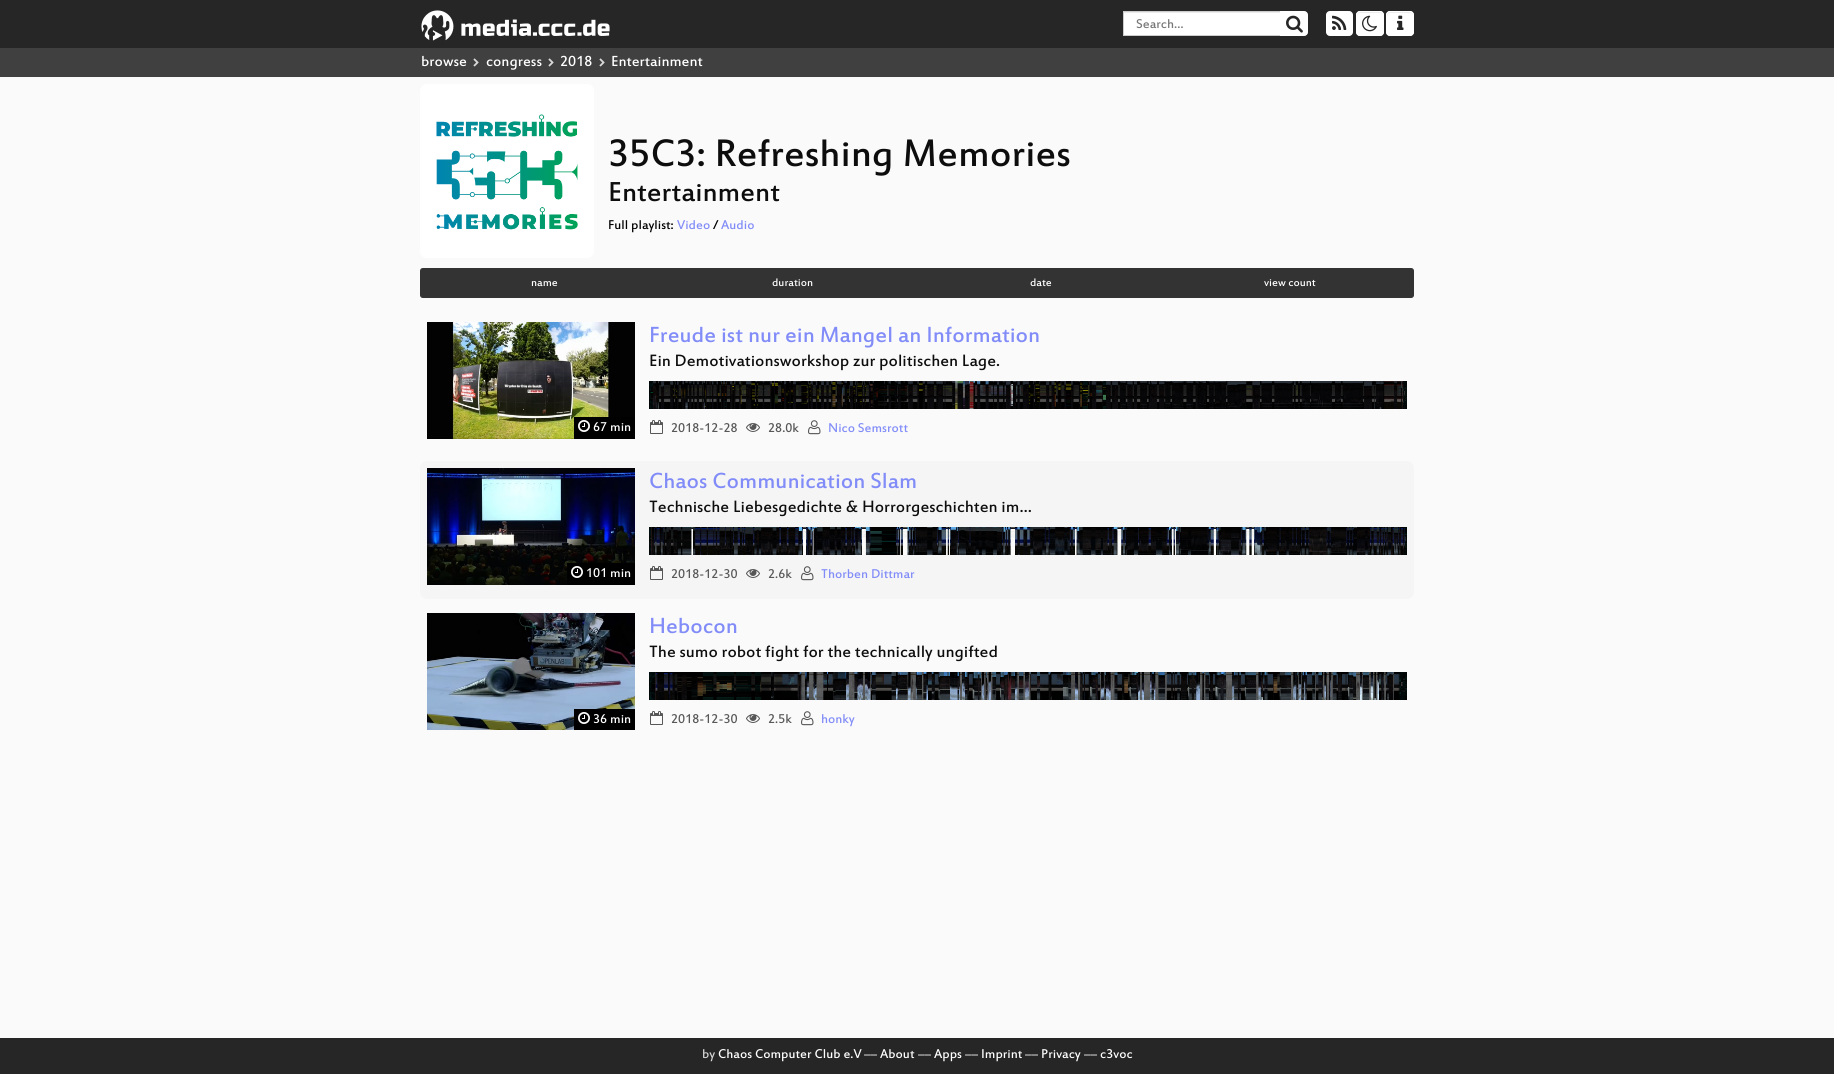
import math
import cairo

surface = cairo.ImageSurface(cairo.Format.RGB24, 1834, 1074)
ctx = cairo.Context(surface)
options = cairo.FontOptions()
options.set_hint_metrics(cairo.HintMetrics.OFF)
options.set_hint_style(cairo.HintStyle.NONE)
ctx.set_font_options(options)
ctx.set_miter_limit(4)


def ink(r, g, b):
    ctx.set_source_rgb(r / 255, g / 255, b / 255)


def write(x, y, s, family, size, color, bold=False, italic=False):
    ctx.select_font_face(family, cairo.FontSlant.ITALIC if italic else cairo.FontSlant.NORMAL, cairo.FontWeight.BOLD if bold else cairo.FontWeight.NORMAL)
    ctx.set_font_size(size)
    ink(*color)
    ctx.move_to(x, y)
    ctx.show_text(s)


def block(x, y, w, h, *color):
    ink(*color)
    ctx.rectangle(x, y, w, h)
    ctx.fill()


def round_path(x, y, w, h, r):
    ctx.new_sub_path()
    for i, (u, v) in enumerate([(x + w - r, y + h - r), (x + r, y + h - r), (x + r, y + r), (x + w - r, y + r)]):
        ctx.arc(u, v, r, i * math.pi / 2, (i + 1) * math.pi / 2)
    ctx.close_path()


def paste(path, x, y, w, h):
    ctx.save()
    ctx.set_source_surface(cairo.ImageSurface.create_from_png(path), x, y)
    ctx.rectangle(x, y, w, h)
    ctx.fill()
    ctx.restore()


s1 = dict(family="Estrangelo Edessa", size=14, color=(119, 119, 119))
s2 = dict(family="Estrangelo Edessa", size=16, color=(255, 255, 255))
s3 = dict(family="Estrangelo Edessa", size=42, color=(13, 13, 13))
s4 = dict(family="Estrangelo Edessa", size=30, color=(13, 13, 13))
s5 = dict(family="Estrangelo Edessa", size=14, color=(0, 0, 0))
s6 = dict(family="Estrangelo Edessa", size=14, color=(129, 140, 248))
s7 = dict(family="Estrangelo Edessa", size=12, color=(255, 255, 255))
s8 = dict(family="Estrangelo Edessa", size=14, color=(255, 255, 255))
s9 = dict(family="Estrangelo Edessa", size=24, color=(129, 140, 248))
s10 = dict(family="Estrangelo Edessa", size=18, color=(13, 13, 13))
s11 = dict(family="Estrangelo Edessa", size=14, color=(88, 88, 88))
s12 = dict(family="Estrangelo Edessa", size=14, color=(212, 212, 212))

ink(250, 250, 250)
ctx.paint()
block(0, 0, 1834, 48, 38, 38, 38)
paste("pic1.png", 421, 10, 189, 31)
block(1124, 13, 156, 22, 255, 255, 255)
block(1124, 12, 156, 1, 236, 236, 236)
ctx.rectangle(1123.5, 11.5, 157, 24)
ink(204, 204, 204)
ctx.set_line_width(1)
ctx.stroke()
write(1136, 28, "Search…", **s1)
ink(255, 255, 255)
ctx.new_path()
ctx.move_to(1280.5, 11.5)
ctx.line_to(1304, 11.5)
ctx.curve_to(1306, 11.5, 1307.5, 13, 1307.5, 15)
ctx.line_to(1307.5, 32)
ctx.curve_to(1307.5, 34, 1306, 35.5, 1304, 35.5)
ctx.line_to(1280.5, 35.5)
ctx.close_path()
ctx.fill_preserve()
ctx.stroke()
paste("pic2.png", 1286, 15, 17, 18)
round_path(1326.5, 11.5, 26, 24, 3.5)
ctx.fill_preserve()
ctx.stroke()
paste("pic3.png", 1332, 15, 15, 15)
round_path(1356, 11, 28, 25, 4)
ctx.fill()
ink(236, 236, 236)
ctx.set_fill_rule(cairo.FillRule.EVEN_ODD)
ctx.new_path()
ctx.move_to(1360, 13)
ctx.line_to(1377, 13)
ctx.curve_to(1381.5, 13, 1383, 13.5, 1383, 16)
ctx.line_to(1383, 15)
ctx.curve_to(1383, 13.5, 1381.5, 12, 1380, 12)
ctx.line_to(1360, 12)
ctx.curve_to(1358.5, 12, 1357, 13.5, 1357, 15)
ctx.line_to(1357, 19)
ctx.curve_to(1357, 17, 1357, 13, 1360, 13)
ctx.close_path()
ctx.move_to(1357, 33)
ctx.line_to(1357, 30)
ctx.close_path()
ctx.fill()
round_path(1356.5, 11.5, 27, 24, 3.5)
ink(255, 255, 255)
ctx.stroke()
paste("pic4.png", 1362, 15, 15, 17)
round_path(1386, 11, 28, 25, 4)
ctx.fill()
ink(236, 236, 236)
ctx.new_path()
ctx.move_to(1390, 13)
ctx.line_to(1407, 13)
ctx.curve_to(1411.5, 13, 1413, 13.5, 1413, 16)
ctx.line_to(1413, 15)
ctx.curve_to(1413, 13.5, 1411.5, 12, 1410, 12)
ctx.line_to(1390, 12)
ctx.curve_to(1388.5, 12, 1387, 13.5, 1387, 15)
ctx.line_to(1387, 19)
ctx.curve_to(1387, 17, 1387, 13, 1390, 13)
ctx.close_path()
ctx.move_to(1387, 33)
ctx.line_to(1387, 30)
ctx.close_path()
ctx.fill()
round_path(1386.5, 11.5, 27, 24, 3.5)
ink(255, 255, 255)
ctx.stroke()
paste("pic5.png", 1397, 15, 7, 15)
block(0, 48, 1834, 29, 64, 64, 64)
write(421, 66, "browse", **s2)
paste("pic6.png", 473, 58, 6, 9)
write(486, 66, "congress", **s2)
paste("pic6.png", 548, 58, 6, 9)
write(560, 66, "2018", **s2)
paste("pic6.png", 599, 58, 6, 9)
write(611, 66, "Entertainment", **s2)
round_path(420, 84, 174, 174, 7)
ctx.fill()
paste("pic7.png", 436, 114, 142, 116)
write(608, 166, "35C3: Refreshing Memories", **s3)
write(608, 201, "Entertainment", **s4)
write(608, 229, "Full playlist:", **s5)
write(677, 229, "Video", **s6)
write(713, 229, "/", **s5)
write(721, 229, "Audio", **s6)
ink(51, 51, 51)
ctx.new_path()
ctx.move_to(423, 268.5)
ctx.line_to(667.5, 268.5)
ctx.line_to(667.5, 297.5)
ctx.line_to(423, 297.5)
ctx.curve_to(421.5, 297.5, 420.5, 296.5, 420.5, 295)
ctx.line_to(420.5, 271)
ctx.curve_to(420.5, 269.5, 421.5, 268.5, 423, 268.5)
ctx.close_path()
ctx.fill_preserve()
ctx.stroke()
write(531, 286, "name", **s7)
block(668, 268, 497, 30, 51, 51, 51)
write(772, 286, "duration", **s7)
write(1030, 286, "date", **s7)
ink(51, 51, 51)
ctx.new_path()
ctx.move_to(1165.5, 268.5)
ctx.line_to(1411, 268.5)
ctx.curve_to(1412.5, 268.5, 1413.5, 269.5, 1413.5, 271)
ctx.line_to(1413.5, 295)
ctx.curve_to(1413.5, 296.5, 1412.5, 297.5, 1411, 297.5)
ctx.line_to(1165.5, 297.5)
ctx.close_path()
ctx.fill_preserve()
ctx.stroke()
write(1264, 286, "view count", **s7)
paste("pic8.png", 427, 322, 208, 117)
block(574, 417, 61, 22, 0, 0, 0)
paste("pic9.png", 578, 420, 12, 12)
write(593, 431, "67 min", **s8)
write(649, 342, "Freude ist nur ein Mangel an Information", **s9)
write(649, 366, "Ein Demotivationsworkshop zur politischen Lage.", **s10)
paste("pic10.png", 649, 381, 758, 28)
paste("pic11.png", 650, 420, 13, 14)
write(671, 432, "2018-12-28", **s11)
paste("pic12.png", 746, 423, 14, 9)
write(768, 432, "28.0k", **s11)
paste("pic13.png", 808, 420, 13, 15)
write(828, 432, "Nico Semsrott", **s6)
ink(245, 245, 245)
round_path(420, 461, 994, 138, 7)
ctx.fill()
paste("pic14.png", 427, 468, 208, 117)
block(567, 563, 68, 22, 0, 0, 0)
paste("pic9.png", 571, 566, 12, 12)
write(586, 577, "101 min", **s8)
write(649, 488, "Chaos Communication Slam", **s9)
write(649, 512, "Technische Liebesgedichte & Horrorgeschichten im…", **s10)
paste("pic15.png", 649, 527, 758, 28)
paste("pic16.png", 650, 566, 13, 14)
write(671, 578, "2018-12-30", **s11)
paste("pic17.png", 746, 569, 14, 9)
write(768, 578, "2.6k", **s11)
paste("pic18.png", 801, 566, 13, 15)
write(821, 578, "Thorben Dittmar", **s6)
paste("pic19.png", 427, 613, 208, 117)
block(574, 709, 61, 21, 0, 0, 0)
paste("pic9.png", 578, 712, 12, 12)
write(593, 723, "36 min", **s8)
write(649, 633, "Hebocon", **s9)
write(649, 657, "The sumo robot fight for the technically ungifted", **s10)
paste("pic20.png", 649, 672, 758, 28)
paste("pic11.png", 650, 711, 13, 14)
write(671, 723, "2018-12-30", **s11)
paste("pic12.png", 746, 714, 14, 9)
write(768, 723, "2.5k", **s11)
paste("pic13.png", 801, 711, 13, 15)
write(821, 723, "honky", **s6)
block(0, 1038, 1834, 36, 38, 38, 38)
write(702, 1058, "by", **s12)
write(718, 1058, "Chaos Computer Club e.V", **s8)
write(864, 1058, "––", **s12)
write(880, 1058, "About", **s8)
write(918, 1058, "––", **s12)
write(934, 1058, "Apps", **s8)
write(965, 1058, "––", **s12)
write(981, 1058, "Imprint", **s8)
write(1025, 1058, "––", **s12)
write(1041, 1058, "Privacy", **s8)
write(1084, 1058, "––", **s12)
write(1100, 1058, "c3voc", **s8)
surface.write_to_png("screenshot.png")
